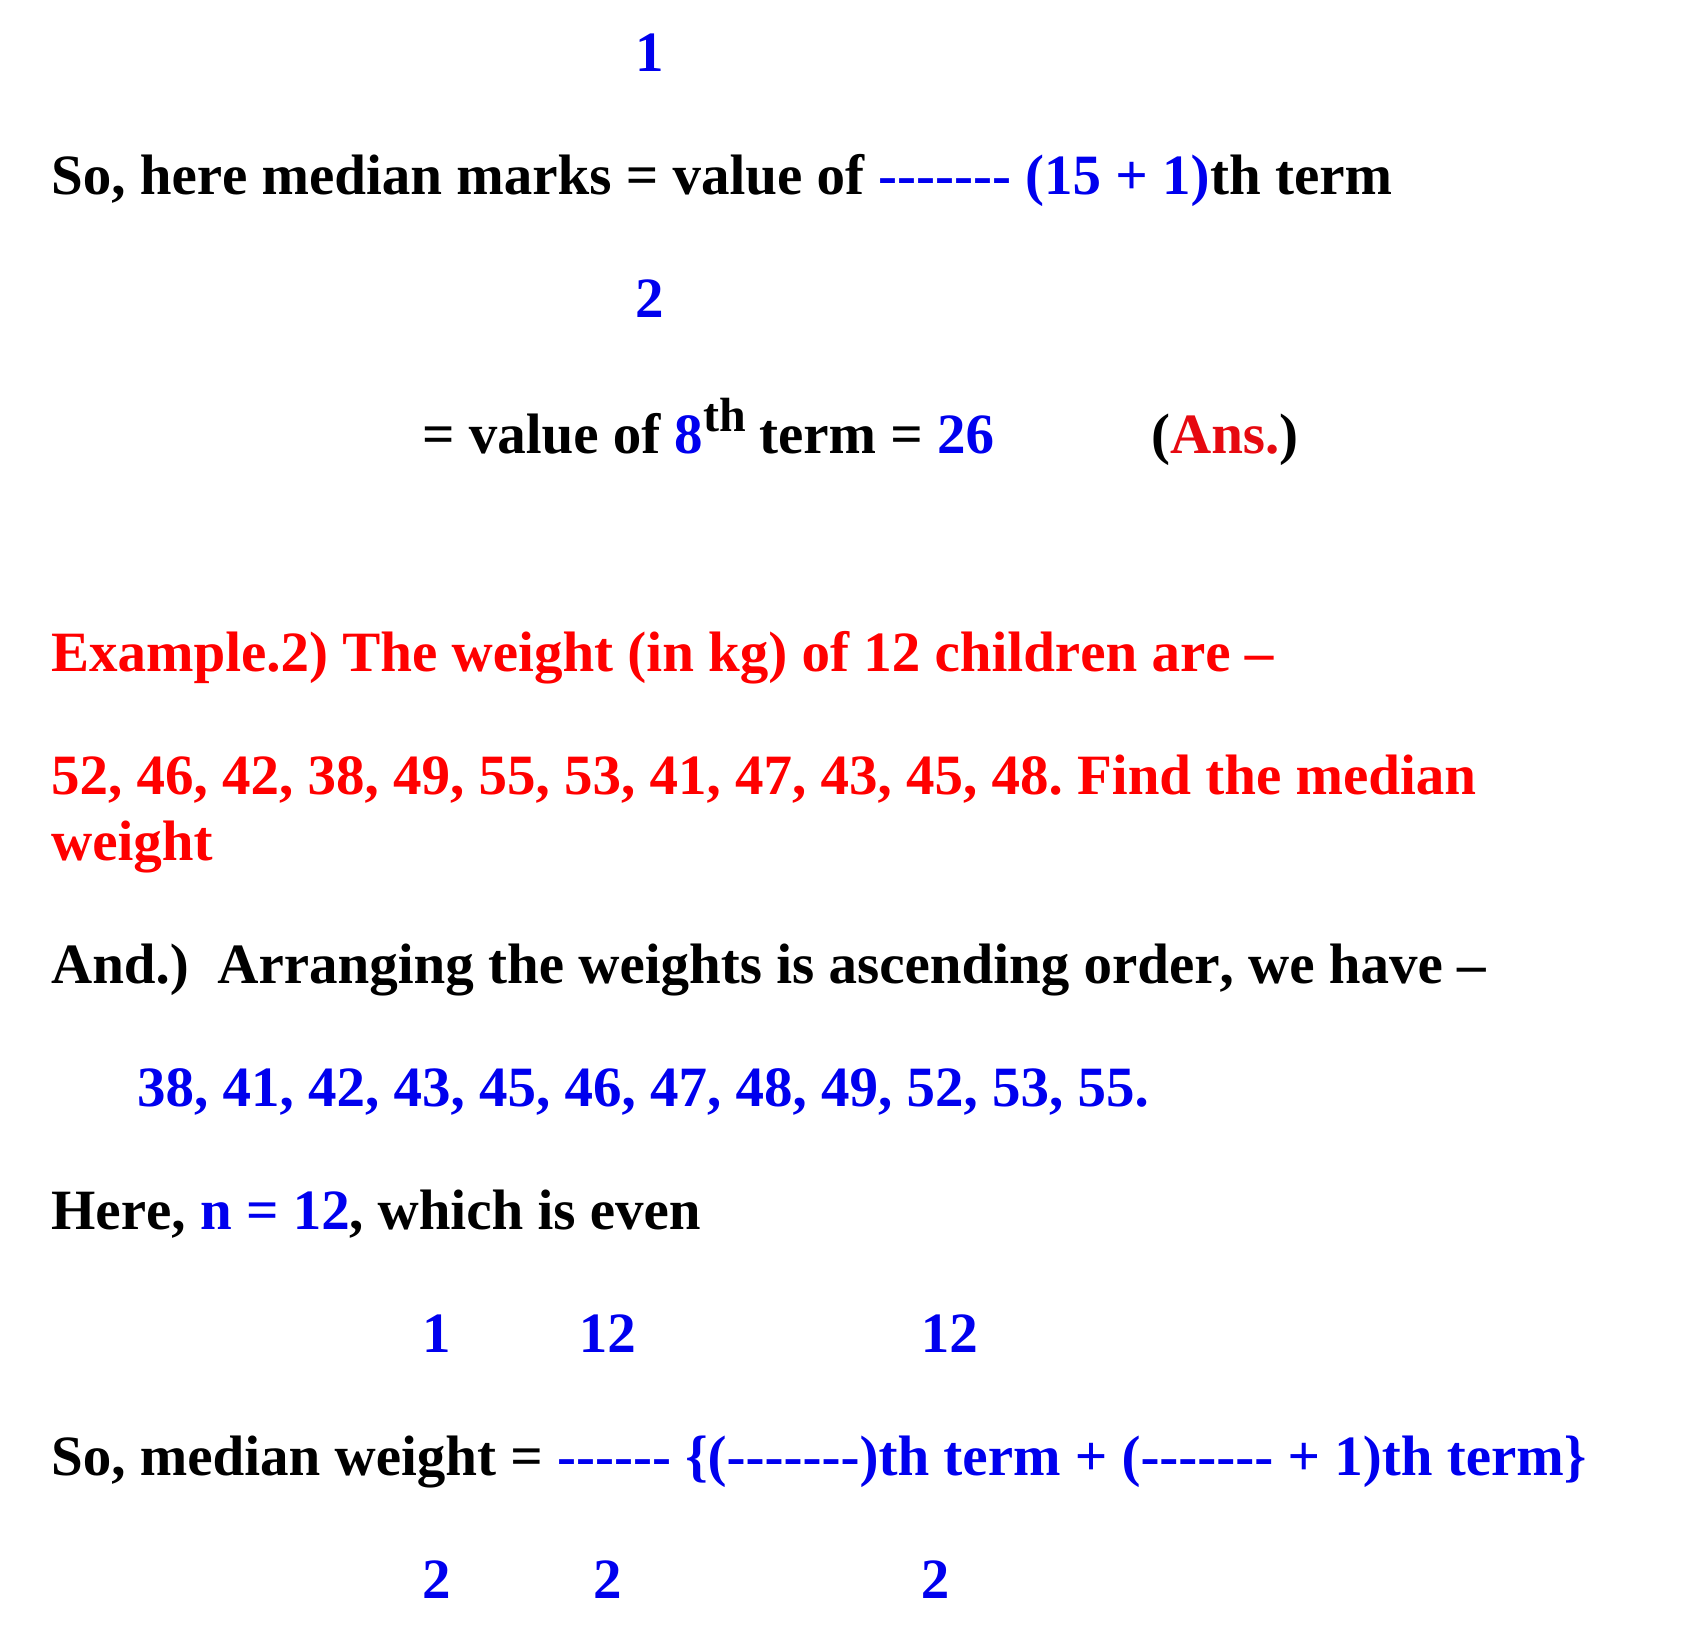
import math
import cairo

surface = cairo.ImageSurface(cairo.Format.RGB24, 1700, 1630)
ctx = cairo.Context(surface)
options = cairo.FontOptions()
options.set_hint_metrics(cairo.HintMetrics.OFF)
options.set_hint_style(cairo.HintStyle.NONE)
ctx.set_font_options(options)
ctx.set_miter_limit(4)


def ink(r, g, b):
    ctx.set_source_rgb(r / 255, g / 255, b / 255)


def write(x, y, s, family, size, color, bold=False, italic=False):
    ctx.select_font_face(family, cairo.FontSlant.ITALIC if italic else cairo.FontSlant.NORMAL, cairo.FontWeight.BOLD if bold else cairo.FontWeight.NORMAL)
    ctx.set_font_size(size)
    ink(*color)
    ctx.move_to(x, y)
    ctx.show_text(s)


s1 = dict(family="Liberation Serif", size=57, color=(0, 0, 238), bold=True)
s2 = dict(family="Liberation Serif", size=57, color=(0, 0, 0), bold=True)
s3 = dict(family="Liberation Serif", size=48, color=(0, 0, 0), bold=True)
s4 = dict(family="Liberation Serif", size=57, color=(230, 9, 16), bold=True)
s5 = dict(family="Liberation Serif", size=57, color=(255, 0, 0), bold=True)

ink(255, 255, 255)
ctx.paint()
write(635, 71, "1", **s1)
write(51, 194, "So, here median marks = value of", **s2)
write(878, 194, "------- (15 + 1)", **s1)
write(1210, 194, "th term", **s2)
write(635, 317, "2", **s1)
write(422, 453, "= value of", **s2)
write(674, 453, "8", **s1)
write(703, 431, "th", **s3)
write(759, 453, "term =", **s2)
write(937, 453, "26", **s1)
write(1151, 453, "(", **s2)
write(1170, 453, "Ans.", **s4)
write(1279, 453, ")", **s2)
write(51, 671, "Example.2) The weight (in kg) of 12 children are –", **s5)
write(51, 794, "52, 46, 42, 38, 49, 55, 53, 41, 47, 43, 45, 48. Find the median", **s5)
write(51, 860, "weight", **s5)
write(51, 983, "And.)  Arranging the weights is ascending order, we have –", **s2)
write(137, 1106, "38, 41, 42, 43, 45, 46, 47, 48, 49, 52, 53, 55.", **s1)
write(51, 1229, "Here,", **s2)
write(200, 1229, "n = 12", **s1)
write(349, 1229, ", which is even", **s2)
write(422, 1352, "1         12                    12", **s1)
write(51, 1475, "So, median weight =", **s2)
write(557, 1475, "------ {(-------)th term + (------- + 1)th term}", **s1)
write(422, 1598, "2          2                     2", **s1)
surface.write_to_png("screenshot.png")
